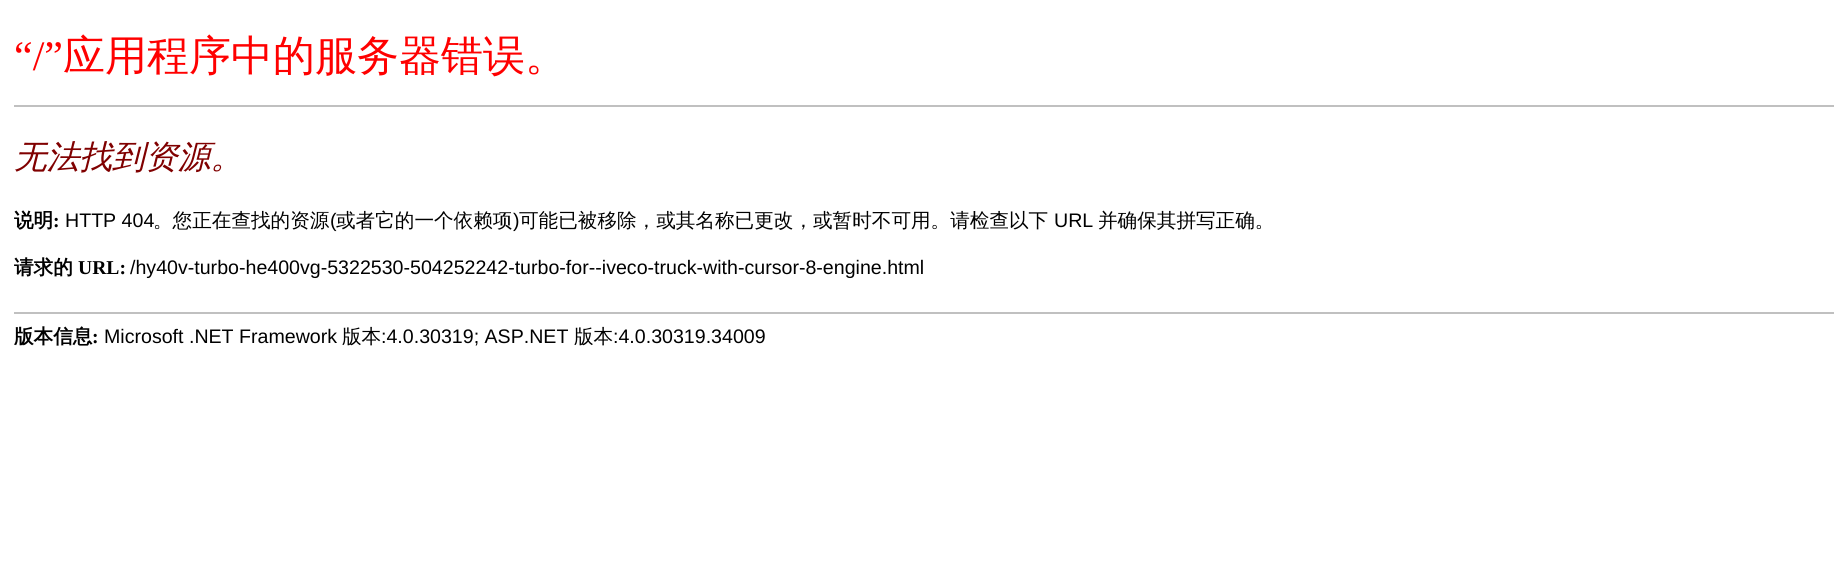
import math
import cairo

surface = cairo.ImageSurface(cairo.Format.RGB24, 1843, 562)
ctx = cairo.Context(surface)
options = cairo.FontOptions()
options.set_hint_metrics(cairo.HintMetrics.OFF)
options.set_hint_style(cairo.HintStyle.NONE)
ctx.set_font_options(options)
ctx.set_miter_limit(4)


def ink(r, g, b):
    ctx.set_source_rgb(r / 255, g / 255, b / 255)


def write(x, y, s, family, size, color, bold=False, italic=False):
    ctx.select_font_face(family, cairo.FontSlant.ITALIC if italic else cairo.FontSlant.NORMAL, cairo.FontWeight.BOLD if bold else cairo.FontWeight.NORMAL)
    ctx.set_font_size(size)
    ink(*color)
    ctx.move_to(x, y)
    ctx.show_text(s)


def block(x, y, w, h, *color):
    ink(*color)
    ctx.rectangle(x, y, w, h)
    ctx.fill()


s1 = dict(family="Liberation Serif", size=42, color=(255, 0, 0))
s2 = dict(family="WenQuanYi Zen Hei Medium", size=42, color=(255, 0, 0))
s3 = dict(family="WenQuanYi Zen Hei Medium", size=32.75, color=(128, 0, 0), italic=True)
s4 = dict(family="WenQuanYi Zen Hei", size=19.6, color=(0, 0, 0), bold=True)
s5 = dict(family="Liberation Serif", size=19.6, color=(0, 0, 0), bold=True)
s6 = dict(family="Liberation Sans", size=19.6, color=(0, 0, 0))
s7 = dict(family="WenQuanYi Zen Hei Medium", size=19.6, color=(0, 0, 0))

ink(255, 255, 255)
ctx.paint()
write(14, 70, "“/”", **s1)
write(63, 70, "应用程序中的服务器错误。", **s2)
block(14, 105, 1820, 2, 192, 192, 192)
write(14, 168, "无法找到资源。", **s3)
write(14, 227, "说明", **s4)
write(53, 227, ":", **s5)
write(65, 227, "HTTP 404", **s6)
write(153, 227, "。您正在查找的资源", **s7)
write(330, 227, "(", **s6)
write(336, 227, "或者它的一个依赖项", **s7)
write(513, 227, ")", **s6)
write(519, 227, "可能已被移除，或其名称已更改，或暂时不可用。请检查以下", **s7)
write(1054, 227, "URL", **s6)
write(1098, 227, "并确保其拼写正确。", **s7)
write(14, 274, "请求的", **s4)
write(78, 274, "URL:", **s5)
write(130, 274, "/hy40v-turbo-he400vg-5322530-504252242-turbo-for--iveco-truck-with-cursor-8-engine.html", **s6)
block(14, 312, 1820, 2, 192, 192, 192)
write(14, 343, "版本信息", **s4)
write(92, 343, ":", **s5)
write(104, 343, "Microsoft .NET Framework", **s6)
write(342, 343, "版本", **s7)
write(381, 343, ":4.0.30319; ASP.NET", **s6)
write(574, 343, "版本", **s7)
write(613, 343, ":4.0.30319.34009", **s6)
surface.write_to_png("screenshot.png")
